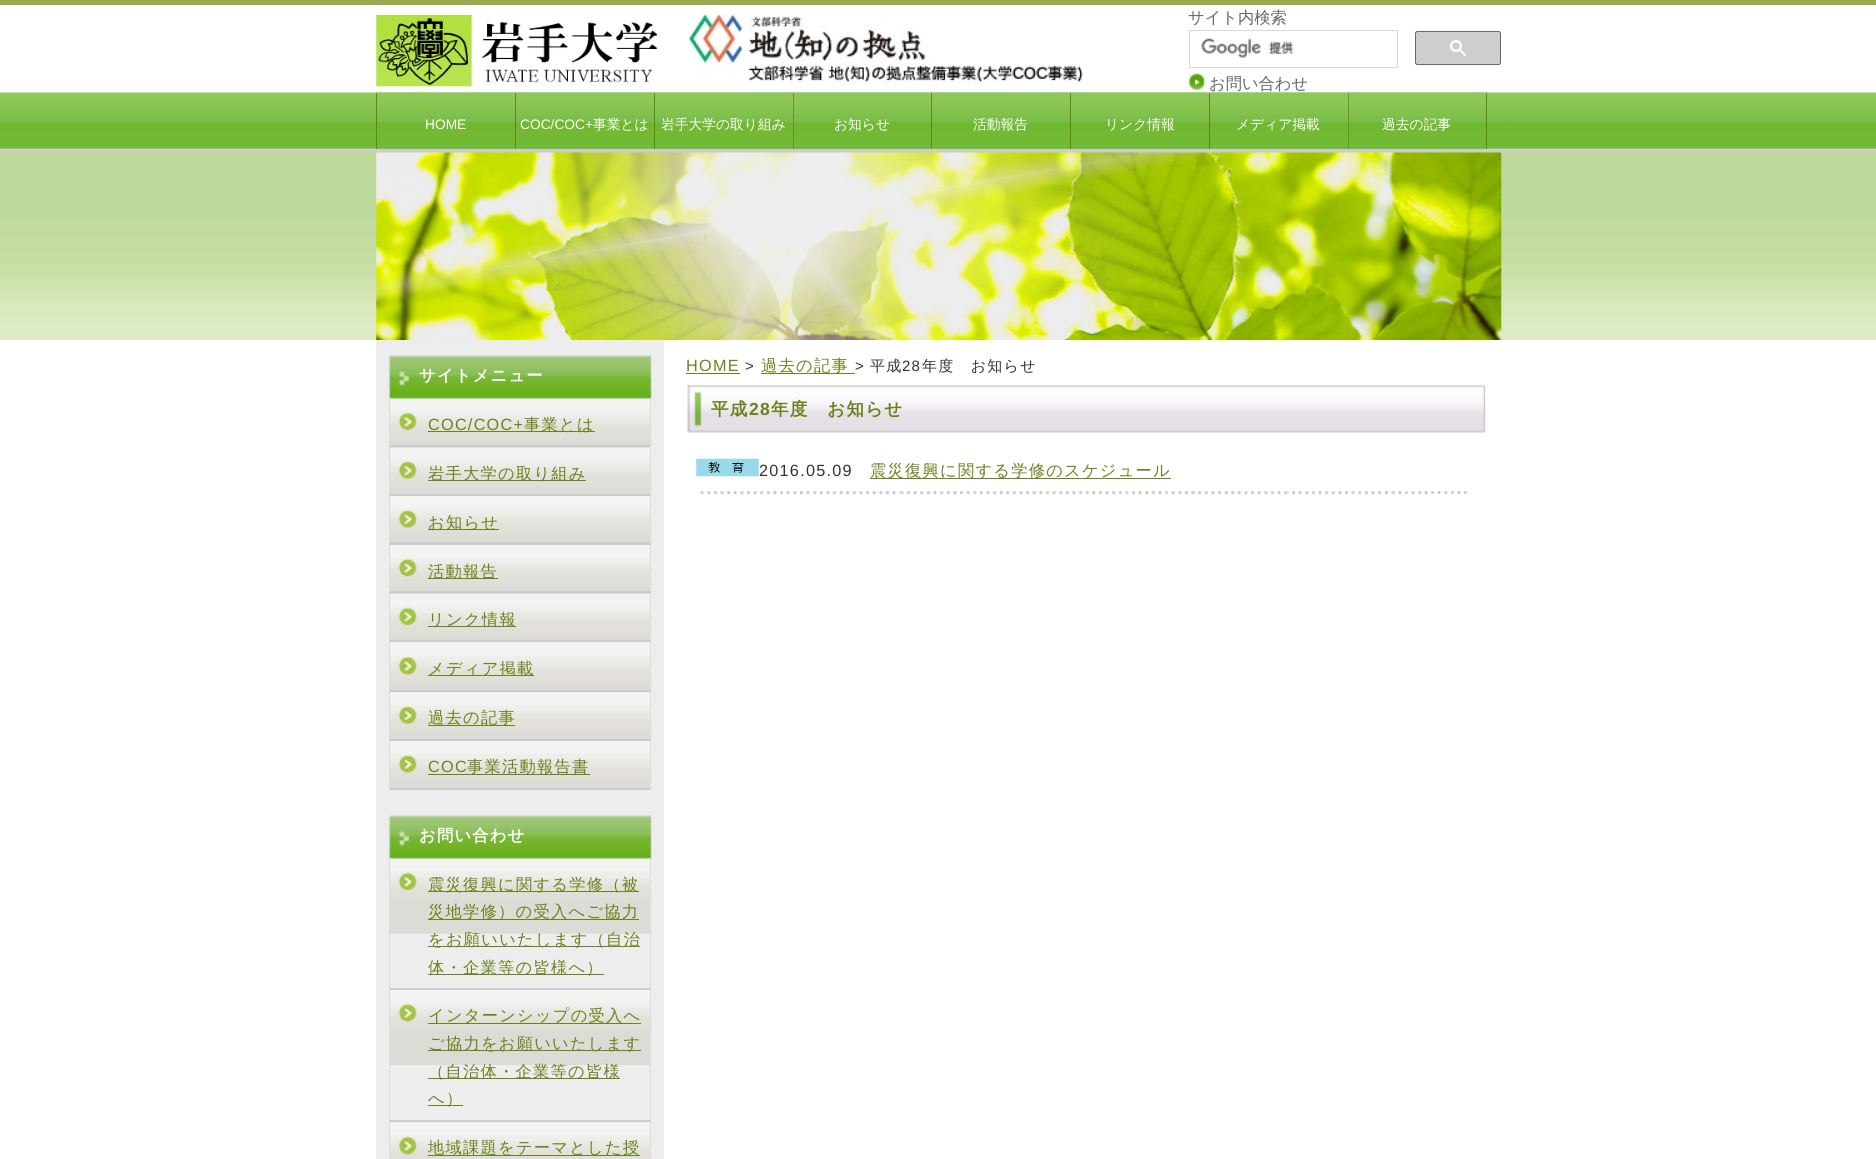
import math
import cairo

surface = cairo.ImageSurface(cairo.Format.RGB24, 1876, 1159)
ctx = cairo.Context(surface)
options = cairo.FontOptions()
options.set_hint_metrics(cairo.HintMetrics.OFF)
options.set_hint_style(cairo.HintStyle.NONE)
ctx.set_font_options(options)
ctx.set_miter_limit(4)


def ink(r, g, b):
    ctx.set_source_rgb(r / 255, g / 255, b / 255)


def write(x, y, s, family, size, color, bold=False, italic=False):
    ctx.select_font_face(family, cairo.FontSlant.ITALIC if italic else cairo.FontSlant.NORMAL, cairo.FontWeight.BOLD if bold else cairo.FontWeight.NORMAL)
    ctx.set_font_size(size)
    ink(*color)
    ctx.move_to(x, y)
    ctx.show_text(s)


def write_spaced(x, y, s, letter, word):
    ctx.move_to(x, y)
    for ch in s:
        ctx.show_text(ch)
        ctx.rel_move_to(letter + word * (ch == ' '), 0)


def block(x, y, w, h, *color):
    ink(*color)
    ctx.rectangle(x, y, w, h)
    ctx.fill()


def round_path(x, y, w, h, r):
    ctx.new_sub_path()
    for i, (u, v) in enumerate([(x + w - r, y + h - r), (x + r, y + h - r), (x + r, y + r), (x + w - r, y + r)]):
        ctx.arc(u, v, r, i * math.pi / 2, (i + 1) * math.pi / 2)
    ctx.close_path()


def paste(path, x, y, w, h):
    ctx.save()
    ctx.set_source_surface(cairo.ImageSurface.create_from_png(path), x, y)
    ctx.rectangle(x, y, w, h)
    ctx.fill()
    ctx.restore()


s1 = dict(family="WenQuanYi Zen Hei Medium", size=16.25, color=(102, 102, 102))
s2 = dict(family="Liberation Sans", size=13.75, color=(255, 255, 252))
s3 = dict(family="WenQuanYi Zen Hei Medium", size=13.75, color=(255, 255, 252))

ink(255, 255, 255)
ctx.paint()
block(0, 0, 1876, 5, 153, 171, 78)
paste("pic1.png", 376, 15, 282, 72)
paste("pic2.png", 688, 13, 395, 69)
write(1188, 23, "サイト内検索", **s1)
ctx.rectangle(1189.5, 30.5, 208, 37)
ink(217, 217, 217)
ctx.set_line_width(1)
ctx.stroke()
paste("pic3.png", 1201, 38, 93, 20)
ink(206, 206, 206)
round_path(1415.5, 31.5, 85, 33, 2)
ctx.fill_preserve()
ink(102, 102, 102)
ctx.stroke()
paste("pic4.png", 1450, 40, 16, 16)
paste("pic5.png", 1188, 73, 17, 17)
write(1209, 89, "お問い合わせ", **s1)
paste("pic6.png", 0, 92, 1876, 57)
block(0, 149, 1876, 4, 204, 204, 204)
paste("pic7.png", 376, 92, 141, 57)
block(515, 93, 1, 56, 105, 130, 27)
block(376, 93, 1, 56, 105, 130, 27)
write(425, 129, "HOME", **s2)
paste("pic8.png", 516, 92, 139, 57)
block(654, 93, 1, 56, 105, 130, 27)
write(520, 129, "COC/COC+", **s2)
write(593, 129, "事業とは", **s3)
paste("pic9.png", 655, 92, 139, 57)
block(793, 93, 1, 56, 105, 130, 27)
write(661, 129, "岩手大学の取り組み", **s3)
paste("pic10.png", 793, 92, 140, 57)
block(931, 93, 1, 56, 105, 130, 27)
write(834, 129, "お知らせ", **s3)
paste("pic11.png", 932, 92, 140, 57)
block(1070, 93, 1, 56, 105, 130, 27)
write(973, 129, "活動報告", **s3)
paste("pic12.png", 1071, 92, 139, 57)
block(1209, 93, 1, 56, 105, 130, 27)
write(1105, 129, "リンク情報", **s3)
paste("pic13.png", 1210, 92, 139, 57)
block(1348, 93, 1, 56, 105, 130, 27)
write(1236, 129, "メディア掲載", **s3)
paste("pic14.png", 1348, 92, 140, 57)
block(1486, 93, 1, 56, 105, 130, 27)
write(1382, 129, "過去の記事", **s3)
paste("pic15.png", 0, 152, 1876, 188)
paste("pic16.png", 376, 152, 1126, 188)
block(376, 340, 288, 819, 237, 237, 237)
paste("pic17.png", 388, 355, 264, 44)
ctx.select_font_face("WenQuanYi Zen Hei", cairo.FontSlant.NORMAL, cairo.FontWeight.BOLD)
ctx.set_font_size(16.25)
ink(255, 255, 252)
write_spaced(419, 381, "サイトメニュー", 1.25, 0)
paste("pic18.png", 390, 398, 262, 50)
ink(221, 221, 221)
ctx.new_path()
ctx.move_to(651, 399)
ctx.line_to(651, 448)
ctx.line_to(650, 445)
ctx.line_to(650, 399)
ctx.close_path()
ctx.fill()
ink(204, 204, 204)
ctx.new_path()
ctx.move_to(651, 448)
ctx.line_to(389, 448)
ctx.line_to(390, 445)
ctx.line_to(650, 445)
ctx.close_path()
ctx.fill()
ink(221, 221, 221)
ctx.new_path()
ctx.move_to(389, 448)
ctx.line_to(389, 399)
ctx.line_to(390, 399)
ctx.line_to(390, 445)
ctx.close_path()
ctx.fill()
ctx.select_font_face("Liberation Sans")
ink(105, 130, 27)
write_spaced(428, 430, "COC/COC+", 1.25, 0)
block(428, 431, 167, 1, 105, 130, 27)
ctx.select_font_face("WenQuanYi Zen Hei Medium")
write_spaced(524, 430, "事業とは", 1.25, 0)
paste("pic19.png", 390, 447, 262, 50)
ink(221, 221, 221)
ctx.new_path()
ctx.move_to(651, 448)
ctx.line_to(651, 496)
ctx.line_to(650, 494)
ctx.line_to(650, 448)
ctx.close_path()
ctx.fill()
ink(204, 204, 204)
ctx.new_path()
ctx.move_to(651, 496)
ctx.line_to(389, 496)
ctx.line_to(390, 494)
ctx.line_to(650, 494)
ctx.close_path()
ctx.fill()
ink(221, 221, 221)
ctx.new_path()
ctx.move_to(389, 496)
ctx.line_to(389, 448)
ctx.line_to(390, 448)
ctx.line_to(390, 494)
ctx.close_path()
ctx.fill()
block(428, 480, 158, 1, 105, 130, 27)
write_spaced(428, 479, "岩手大学の取り組み", 1.25, 0)
paste("pic20.png", 390, 496, 262, 49)
ink(221, 221, 221)
ctx.new_path()
ctx.move_to(651, 496)
ctx.line_to(651, 545)
ctx.line_to(650, 542)
ctx.line_to(650, 496)
ctx.close_path()
ctx.fill()
ink(204, 204, 204)
ctx.new_path()
ctx.move_to(651, 545)
ctx.line_to(389, 545)
ctx.line_to(390, 542)
ctx.line_to(650, 542)
ctx.close_path()
ctx.fill()
ink(221, 221, 221)
ctx.new_path()
ctx.move_to(389, 545)
ctx.line_to(389, 496)
ctx.line_to(390, 496)
ctx.line_to(390, 542)
ctx.close_path()
ctx.fill()
block(428, 529, 71, 1, 105, 130, 27)
write_spaced(428, 528, "お知らせ", 1.25, 0)
paste("pic21.png", 390, 545, 262, 49)
ink(221, 221, 221)
ctx.new_path()
ctx.move_to(651, 545)
ctx.line_to(651, 594)
ctx.line_to(650, 591)
ctx.line_to(650, 545)
ctx.close_path()
ctx.fill()
ink(204, 204, 204)
ctx.new_path()
ctx.move_to(651, 594)
ctx.line_to(389, 594)
ctx.line_to(390, 591)
ctx.line_to(650, 591)
ctx.close_path()
ctx.fill()
ink(221, 221, 221)
ctx.new_path()
ctx.move_to(389, 594)
ctx.line_to(389, 545)
ctx.line_to(390, 545)
ctx.line_to(390, 591)
ctx.close_path()
ctx.fill()
block(428, 578, 70, 1, 105, 130, 27)
write_spaced(428, 577, "活動報告", 1.25, 0)
paste("pic22.png", 390, 593, 262, 50)
ink(221, 221, 221)
ctx.new_path()
ctx.move_to(651, 594)
ctx.line_to(651, 642)
ctx.line_to(650, 640)
ctx.line_to(650, 594)
ctx.close_path()
ctx.fill()
ink(204, 204, 204)
ctx.new_path()
ctx.move_to(651, 642)
ctx.line_to(389, 642)
ctx.line_to(390, 640)
ctx.line_to(650, 640)
ctx.close_path()
ctx.fill()
ink(221, 221, 221)
ctx.new_path()
ctx.move_to(389, 642)
ctx.line_to(389, 594)
ctx.line_to(390, 594)
ctx.line_to(390, 640)
ctx.close_path()
ctx.fill()
block(428, 626, 88, 1, 105, 130, 27)
write_spaced(428, 625, "リンク情報", 1.25, 0)
paste("pic23.png", 390, 642, 262, 51)
ink(221, 221, 221)
ctx.new_path()
ctx.move_to(651, 642)
ctx.line_to(651, 692)
ctx.line_to(650, 690)
ctx.line_to(650, 642)
ctx.close_path()
ctx.fill()
ink(204, 204, 204)
ctx.new_path()
ctx.move_to(651, 692)
ctx.line_to(389, 692)
ctx.line_to(390, 690)
ctx.line_to(650, 690)
ctx.close_path()
ctx.fill()
ink(221, 221, 221)
ctx.new_path()
ctx.move_to(389, 692)
ctx.line_to(389, 642)
ctx.line_to(390, 642)
ctx.line_to(390, 690)
ctx.close_path()
ctx.fill()
block(428, 675, 106, 1, 105, 130, 27)
write_spaced(428, 674, "メディア掲載", 1.25, 0)
paste("pic24.png", 390, 692, 262, 50)
ink(221, 221, 221)
ctx.new_path()
ctx.move_to(651, 692)
ctx.line_to(651, 741)
ctx.line_to(650, 739)
ctx.line_to(650, 692)
ctx.close_path()
ctx.fill()
ink(204, 204, 204)
ctx.new_path()
ctx.move_to(651, 741)
ctx.line_to(389, 741)
ctx.line_to(390, 739)
ctx.line_to(650, 739)
ctx.close_path()
ctx.fill()
ink(221, 221, 221)
ctx.new_path()
ctx.move_to(389, 741)
ctx.line_to(389, 692)
ctx.line_to(390, 692)
ctx.line_to(390, 739)
ctx.close_path()
ctx.fill()
block(428, 725, 87, 1, 105, 130, 27)
write_spaced(428, 723, "過去の記事", 1.25, 0)
paste("pic20.png", 390, 741, 262, 49)
ink(221, 221, 221)
ctx.new_path()
ctx.move_to(651, 741)
ctx.line_to(651, 790)
ctx.line_to(650, 788)
ctx.line_to(650, 741)
ctx.close_path()
ctx.fill()
ink(204, 204, 204)
ctx.new_path()
ctx.move_to(651, 790)
ctx.line_to(389, 790)
ctx.line_to(390, 788)
ctx.line_to(650, 788)
ctx.close_path()
ctx.fill()
ink(221, 221, 221)
ctx.new_path()
ctx.move_to(389, 790)
ctx.line_to(389, 741)
ctx.line_to(390, 741)
ctx.line_to(390, 788)
ctx.close_path()
ctx.fill()
ctx.select_font_face("Liberation Sans")
ink(105, 130, 27)
write_spaced(428, 772, "COC", 1.25, 0)
block(428, 774, 162, 1, 105, 130, 27)
ctx.select_font_face("WenQuanYi Zen Hei Medium")
write_spaced(467, 772, "事業活動報告書", 1.25, 0)
paste("pic17.png", 388, 815, 264, 44)
ctx.select_font_face("WenQuanYi Zen Hei", cairo.FontSlant.NORMAL, cairo.FontWeight.BOLD)
ink(255, 255, 252)
write_spaced(419, 841, "お問い合わせ", 1.25, 0)
paste("pic25.png", 390, 858, 262, 76)
ink(221, 221, 221)
ctx.new_path()
ctx.move_to(651, 859)
ctx.line_to(651, 990)
ctx.line_to(650, 988)
ctx.line_to(650, 859)
ctx.close_path()
ctx.fill()
ink(204, 204, 204)
ctx.new_path()
ctx.move_to(651, 990)
ctx.line_to(389, 990)
ctx.line_to(390, 988)
ctx.line_to(650, 988)
ctx.close_path()
ctx.fill()
ink(221, 221, 221)
ctx.new_path()
ctx.move_to(389, 990)
ctx.line_to(389, 859)
ctx.line_to(390, 859)
ctx.line_to(390, 988)
ctx.close_path()
ctx.fill()
block(428, 891, 211, 1, 105, 130, 27)
ctx.select_font_face("WenQuanYi Zen Hei Medium")
write_spaced(428, 890, "震災復興に関する学修（被", 1.25, 0)
block(428, 919, 211, 1, 105, 130, 27)
write_spaced(428, 917, "災地学修）の受入へご協力", 1.25, 0)
block(428, 946, 212, 1, 105, 130, 27)
write_spaced(428, 945, "をお願いいたします（自治", 1.25, 0)
block(428, 974, 176, 1, 105, 130, 27)
write_spaced(428, 973, "体・企業等の皆様へ）", 1.25, 0)
paste("pic26.png", 390, 990, 262, 75)
ink(221, 221, 221)
ctx.new_path()
ctx.move_to(651, 990)
ctx.line_to(651, 1122)
ctx.line_to(650, 1120)
ctx.line_to(650, 990)
ctx.close_path()
ctx.fill()
ink(204, 204, 204)
ctx.new_path()
ctx.move_to(651, 1122)
ctx.line_to(389, 1122)
ctx.line_to(390, 1120)
ctx.line_to(650, 1120)
ctx.close_path()
ctx.fill()
ink(221, 221, 221)
ctx.new_path()
ctx.move_to(389, 1122)
ctx.line_to(389, 990)
ctx.line_to(390, 990)
ctx.line_to(390, 1120)
ctx.close_path()
ctx.fill()
block(428, 1023, 213, 1, 105, 130, 27)
write_spaced(428, 1021, "インターンシップの受入へ", 1.25, 0)
block(428, 1050, 213, 1, 105, 130, 27)
write_spaced(428, 1049, "ご協力をお願いいたします", 1.25, 0)
block(428, 1078, 192, 1, 105, 130, 27)
write_spaced(428, 1077, "（自治体・企業等の皆様", 1.25, 0)
block(428, 1105, 35, 1, 105, 130, 27)
write_spaced(428, 1104, "へ）", 1.25, 0)
paste("pic27.png", 390, 1122, 262, 37)
ink(221, 221, 221)
ctx.new_path()
ctx.move_to(651, 1122)
ctx.line_to(651, 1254)
ctx.line_to(650, 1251)
ctx.line_to(650, 1122)
ctx.close_path()
ctx.fill()
ctx.new_path()
ctx.move_to(389, 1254)
ctx.line_to(389, 1122)
ctx.line_to(390, 1122)
ctx.line_to(390, 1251)
ctx.close_path()
ctx.fill()
block(428, 1155, 212, 1, 105, 130, 27)
write_spaced(428, 1153, "地域課題をテーマとした授", 1.25, 0)
ctx.select_font_face("Liberation Sans")
write_spaced(686, 371, "HOME", 1.25, 0)
block(686, 373, 54, 1, 105, 130, 27)
ctx.set_font_size(15)
ink(51, 51, 51)
write_spaced(745, 371, ">", 1.25, 0)
block(761, 373, 94, 1, 105, 130, 27)
ctx.select_font_face("WenQuanYi Zen Hei Medium")
ctx.set_font_size(16.25)
write_spaced(761, 371, "過去の記事", 1.25, 0)
ctx.select_font_face("Liberation Sans")
ctx.set_font_size(15)
ink(51, 51, 51)
write_spaced(855, 371, ">", 1.25, 0)
ctx.select_font_face("WenQuanYi Zen Hei Medium")
write_spaced(870, 371, "平成", 1.25, 0)
ctx.select_font_face("Liberation Sans")
write_spaced(902, 371, "28", 1.25, 0)
ctx.select_font_face("WenQuanYi Zen Hei Medium")
write_spaced(922, 371, "年度　お知らせ", 1.25, 0)
paste("pic28.png", 687, 385, 799, 48)
ctx.select_font_face("WenQuanYi Zen Hei", cairo.FontSlant.NORMAL, cairo.FontWeight.BOLD)
ctx.set_font_size(17.5)
ink(105, 130, 27)
write_spaced(711, 415, "平成", 1.25, 0)
ctx.select_font_face("Liberation Sans", cairo.FontSlant.NORMAL, cairo.FontWeight.BOLD)
write_spaced(749, 415, "28", 1.25, 0)
ctx.select_font_face("WenQuanYi Zen Hei", cairo.FontSlant.NORMAL, cairo.FontWeight.BOLD)
write_spaced(771, 415, "年度　お知らせ", 1.25, 0)
paste("pic29.png", 696, 458, 63, 19)
ctx.select_font_face("Liberation Sans")
ctx.set_font_size(16.25)
ink(51, 51, 51)
write_spaced(759, 476, "2016.05.09", 1.25, 0)
block(870, 478, 301, 1, 105, 130, 27)
ctx.select_font_face("WenQuanYi Zen Hei Medium")
write_spaced(870, 476, "震災復興に関する学修のスケジュール", 1.25, 0)
paste("pic30.png", 700, 491, 768, 4)
surface.write_to_png("screenshot.png")
